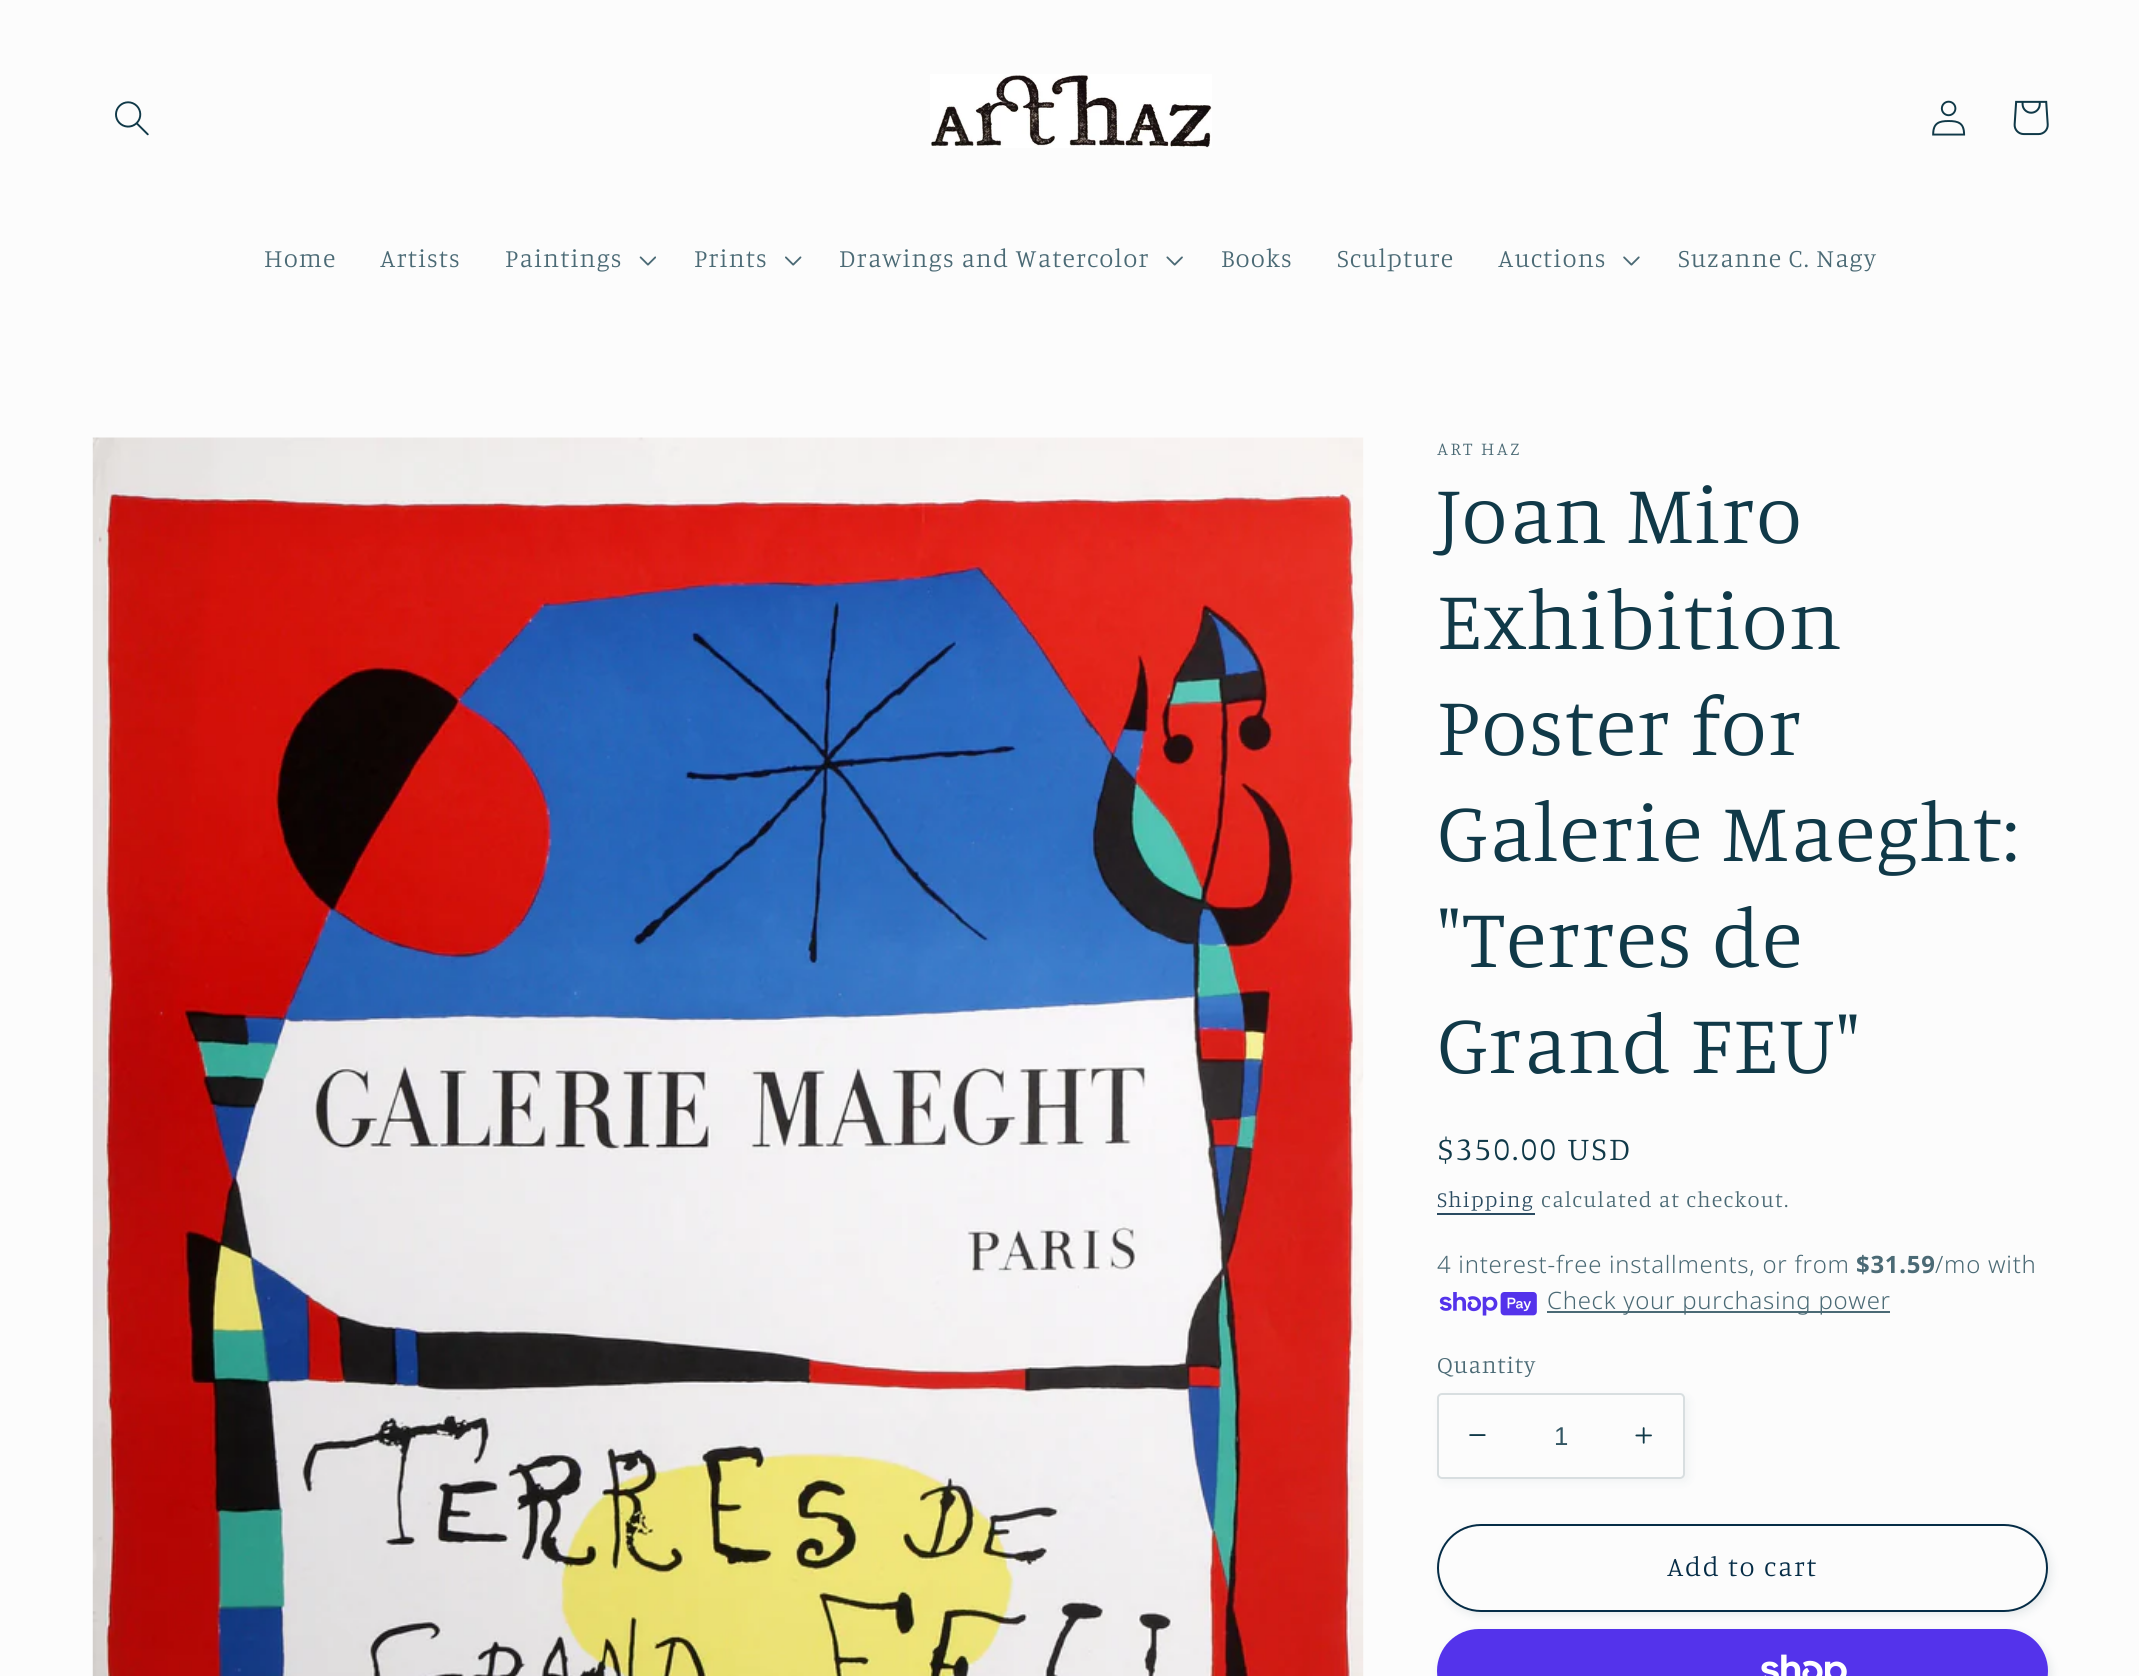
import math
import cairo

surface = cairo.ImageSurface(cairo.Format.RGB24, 2139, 1676)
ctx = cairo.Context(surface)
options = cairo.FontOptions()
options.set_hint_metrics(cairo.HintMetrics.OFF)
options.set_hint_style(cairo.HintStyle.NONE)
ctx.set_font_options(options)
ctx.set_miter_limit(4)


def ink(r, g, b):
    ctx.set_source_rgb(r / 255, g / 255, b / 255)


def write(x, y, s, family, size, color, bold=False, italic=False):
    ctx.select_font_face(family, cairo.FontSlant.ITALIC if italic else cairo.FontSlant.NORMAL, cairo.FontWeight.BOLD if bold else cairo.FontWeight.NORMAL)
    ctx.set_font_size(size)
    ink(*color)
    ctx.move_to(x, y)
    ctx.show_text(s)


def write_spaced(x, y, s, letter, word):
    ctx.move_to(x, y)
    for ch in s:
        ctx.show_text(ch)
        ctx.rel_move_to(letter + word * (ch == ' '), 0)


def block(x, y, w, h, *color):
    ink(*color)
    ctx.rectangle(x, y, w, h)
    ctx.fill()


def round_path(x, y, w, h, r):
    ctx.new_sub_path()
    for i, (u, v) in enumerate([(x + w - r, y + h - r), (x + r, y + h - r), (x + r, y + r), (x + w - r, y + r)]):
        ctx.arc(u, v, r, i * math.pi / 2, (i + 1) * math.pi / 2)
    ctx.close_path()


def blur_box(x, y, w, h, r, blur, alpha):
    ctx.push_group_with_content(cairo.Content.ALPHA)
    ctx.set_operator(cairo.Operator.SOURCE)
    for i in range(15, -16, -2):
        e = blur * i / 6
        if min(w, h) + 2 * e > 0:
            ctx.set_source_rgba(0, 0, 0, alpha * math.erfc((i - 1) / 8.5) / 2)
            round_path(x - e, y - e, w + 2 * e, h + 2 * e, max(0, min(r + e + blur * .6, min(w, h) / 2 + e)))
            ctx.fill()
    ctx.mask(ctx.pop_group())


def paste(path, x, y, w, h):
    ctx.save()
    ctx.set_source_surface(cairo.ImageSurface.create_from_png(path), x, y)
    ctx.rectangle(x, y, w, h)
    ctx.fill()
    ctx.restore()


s1 = dict(family="Liberation Sans", size=25.75, color=(51, 86, 99))

ink(252, 252, 252)
ctx.paint()
paste("pic1.png", 115, 101, 34, 35)
paste("pic2.png", 930, 74, 282, 74)
paste("pic3.png", 1932, 100, 34, 36)
paste("pic4.png", 2013, 100, 36, 36)
ctx.select_font_face("Manuale Light")
ctx.set_font_size(25.75)
ink(75, 106, 117)
write_spaced(264, 267, "Home", 1.1, 0)
write_spaced(380, 267, "Artists", 1.1, 0)
write_spaced(505, 267, "Paintings", 1.1, 0)
paste("pic5.png", 639, 256, 17, 10)
write_spaced(694, 267, "Prints", 1.1, 0)
paste("pic6.png", 785, 256, 17, 10)
write_spaced(839, 267, "Drawings and Watercolor", 1.1, 0)
paste("pic7.png", 1166, 256, 17, 10)
write_spaced(1221, 267, "Books", 1.1, 0)
write_spaced(1337, 267, "Sculpture", 1.1, 0)
write_spaced(1498, 267, "Auctions", 1.1, 0)
paste("pic8.png", 1623, 256, 17, 10)
write_spaced(1678, 267, "Suzanne C. Nagy", 1.1, 0)
paste("pic9.png", 92, 437, 1272, 1239)
ctx.set_font_size(18.5)
write_spaced(1437, 455, "ART HAZ", 2.4, 0)
ctx.set_font_size(84)
ink(16, 57, 72)
write_spaced(1437, 543, "Joan Miro", 1.25, 0)
write_spaced(1437, 649, "Exhibition", 1.25, 0)
write_spaced(1437, 755, "Poster for", 1.25, 0)
write_spaced(1437, 861, "Galerie Maeght:", 1.25, 0)
write_spaced(1437, 967, "\"Terres de", 1.25, 0)
write_spaced(1437, 1073, "Grand FEU\"", 1.25, 0)
ctx.set_font_size(33)
write_spaced(1437, 1160, "$350.00 USD", 2.4, 0)
ctx.set_font_size(22)
ink(42, 75, 97)
write_spaced(1437, 1207, "Shipping", 1.25, 0)
block(1437, 1213, 98, 2, 42, 75, 97)
ink(75, 106, 117)
write_spaced(1541, 1207, "calculated at checkout.", 1.25, 0)
ctx.select_font_face("Noto Sans Light")
ctx.set_font_size(23.9)
write_spaced(1437, 1273, "4 interest-free installments, or from", 0.75, 0)
ctx.select_font_face("Noto Sans", cairo.FontSlant.NORMAL, cairo.FontWeight.BOLD)
write_spaced(1856, 1273, "$31.59", 0.75, 0)
ctx.select_font_face("Noto Sans Light")
write_spaced(1935, 1273, "/mo with", 0.75, 0)
paste("pic10.png", 1439, 1292, 98, 24)
block(1547, 1311, 343, 2, 75, 106, 117)
write_spaced(1547, 1309, "Check your purchasing power", 0.75, 0)
ctx.select_font_face("Manuale Light")
write_spaced(1437, 1373, "Quantity", 0.75, 0)
ink(16, 57, 72)
blur_box(1440, 1397, 249, 85, 5, 4.5, 0.05)
ink(252, 252, 252)
round_path(1437, 1393, 248, 86, 5)
ctx.fill()
paste("pic11.png", 1469, 1434, 17, 2)
paste("pic12.png", 1635, 1427, 17, 17)
round_path(1438, 1394, 246, 84, 4)
ctx.set_source_rgba(0.063, 0.224, 0.282, 0.15)
ctx.stroke()
write(1554, 1445, "1", **s1)
ink(16, 57, 72)
blur_box(1440, 1528, 611, 87, 43.5, 4.5, 0.1)
ink(252, 252, 252)
round_path(1437, 1524, 611, 88, 44)
ctx.fill()
round_path(1438, 1525, 609, 86, 43)
ctx.stroke()
round_path(1438, 1525, 609, 86, 43)
ink(5, 44, 70)
ctx.stroke()
ctx.select_font_face("Manuale Light")
ctx.set_font_size(27.5)
write_spaced(1667, 1576, "Add to cart", 1.75, 0)
ink(16, 57, 72)
blur_box(1440, 1633, 611, 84, 42, 4.5, 0.1)
ink(84, 51, 235)
round_path(1437, 1629, 611, 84, 42)
ctx.fill()
paste("pic13.png", 1761, 1654, 86, 22)
surface.write_to_png("screenshot.png")
